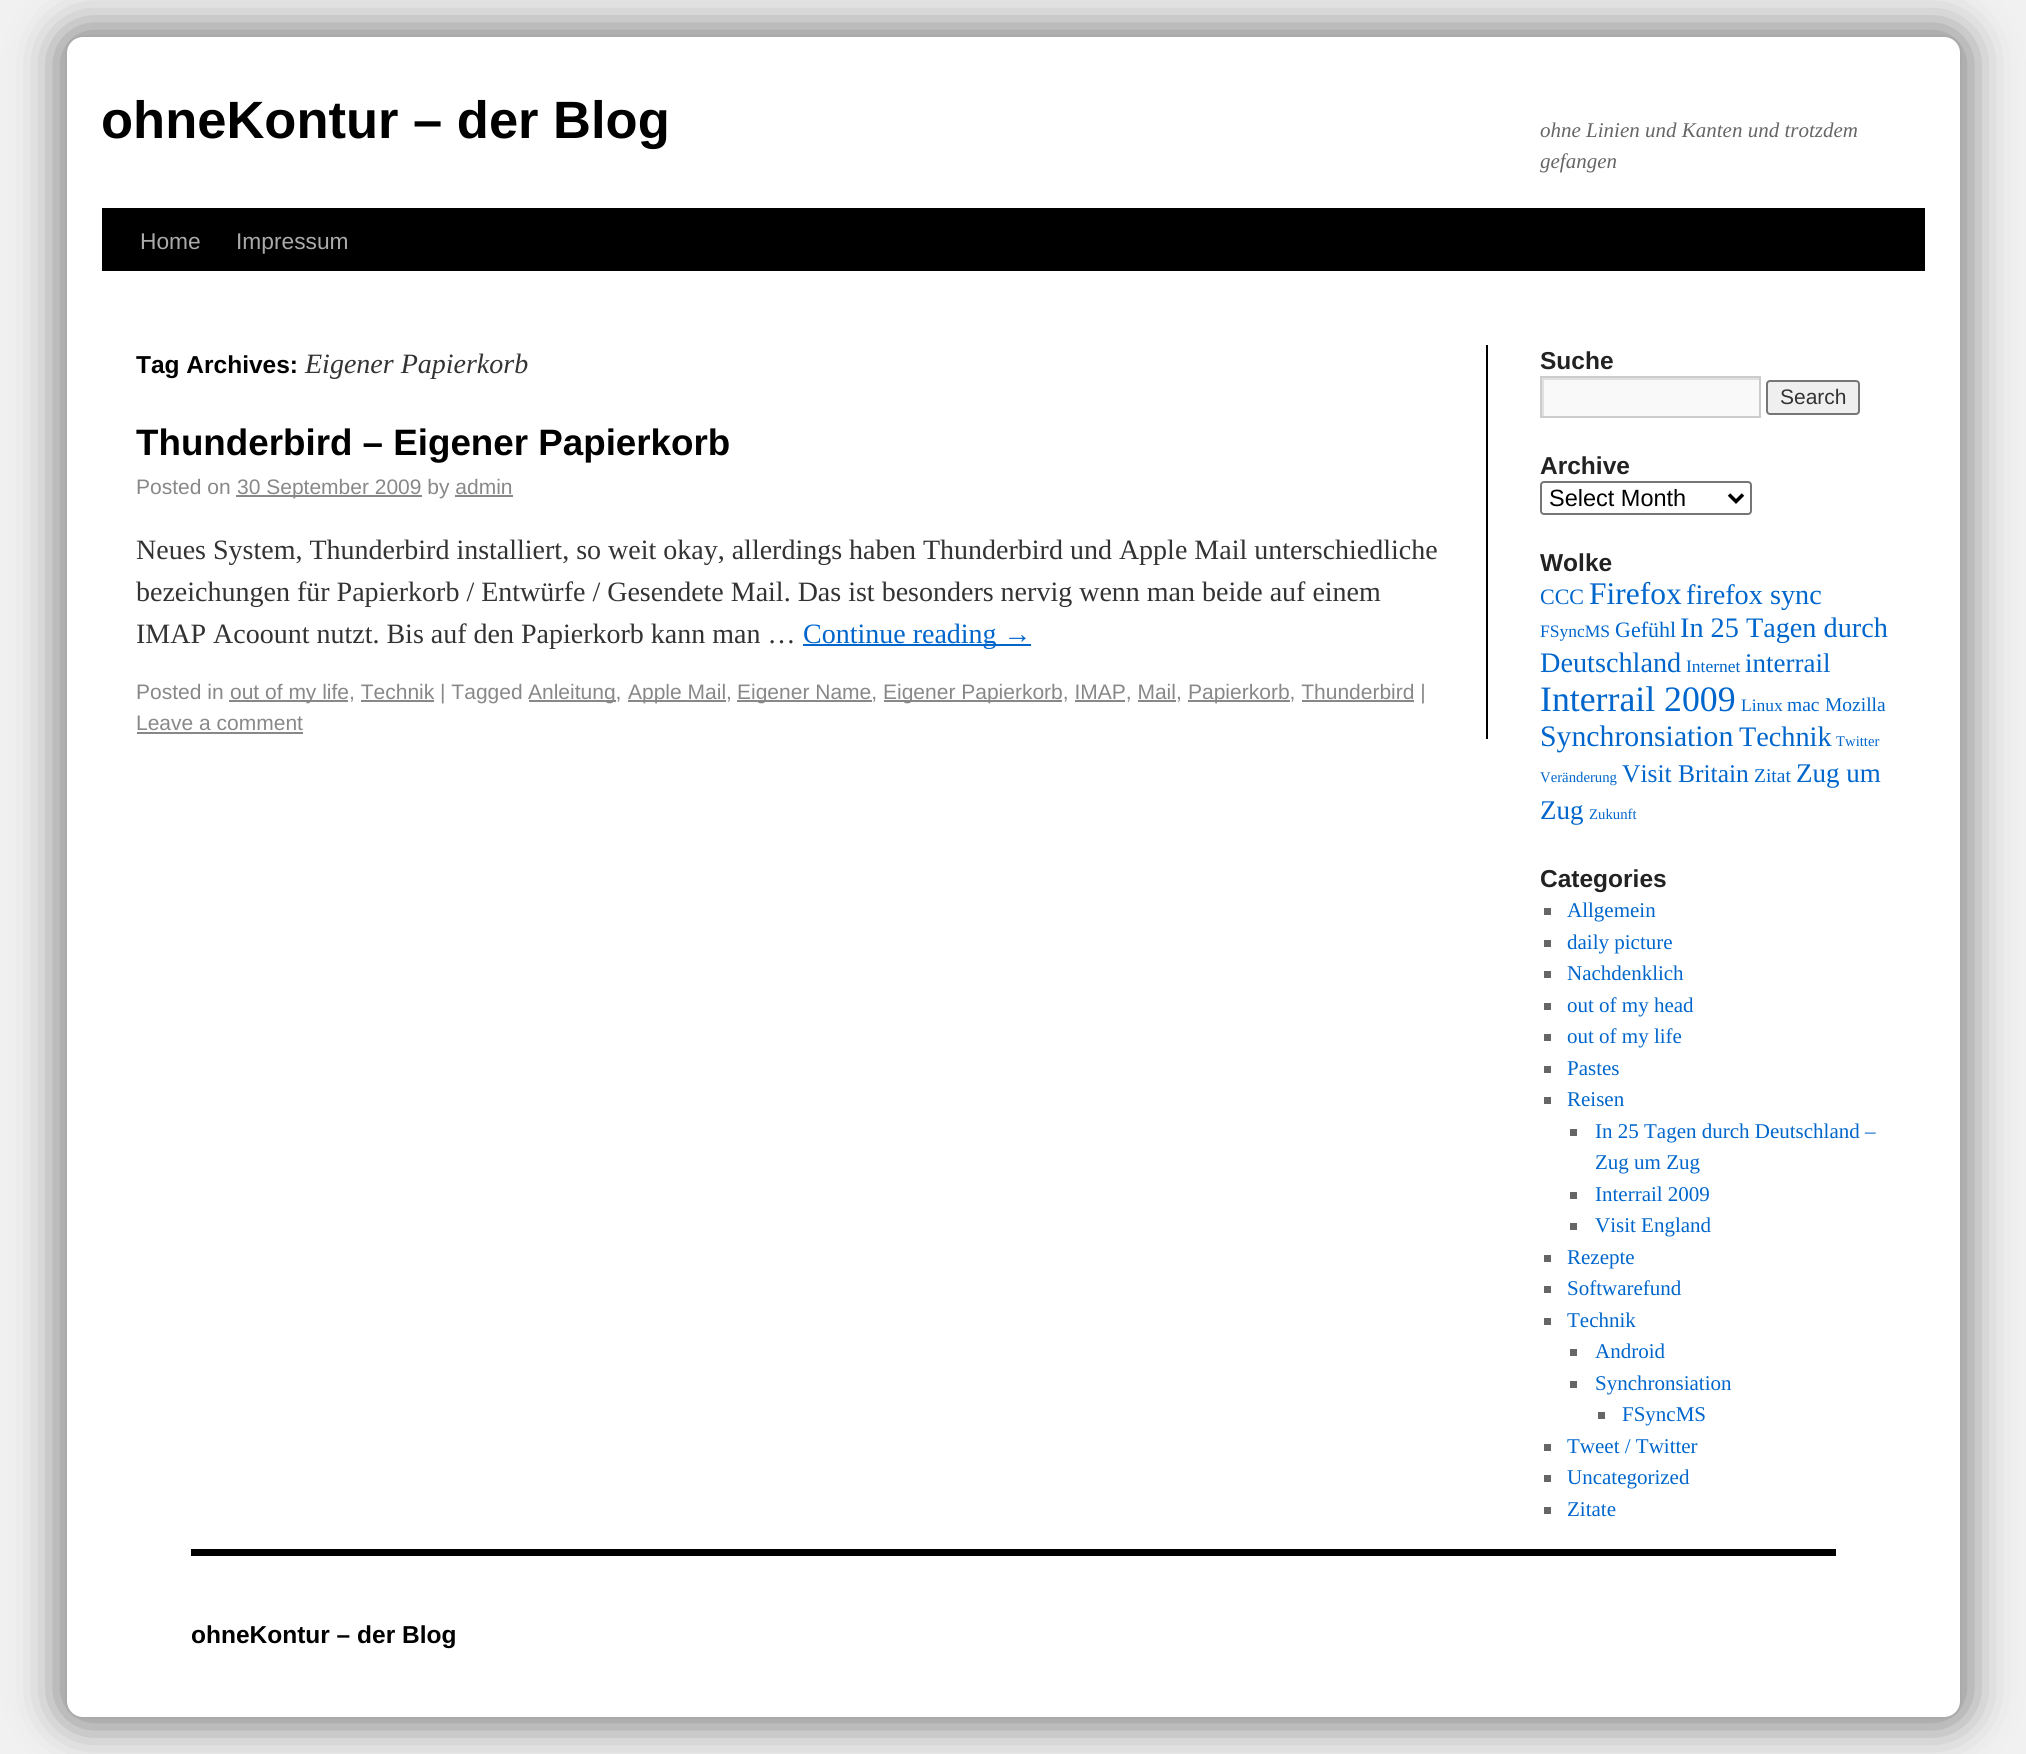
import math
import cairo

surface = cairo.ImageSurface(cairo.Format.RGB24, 2026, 1754)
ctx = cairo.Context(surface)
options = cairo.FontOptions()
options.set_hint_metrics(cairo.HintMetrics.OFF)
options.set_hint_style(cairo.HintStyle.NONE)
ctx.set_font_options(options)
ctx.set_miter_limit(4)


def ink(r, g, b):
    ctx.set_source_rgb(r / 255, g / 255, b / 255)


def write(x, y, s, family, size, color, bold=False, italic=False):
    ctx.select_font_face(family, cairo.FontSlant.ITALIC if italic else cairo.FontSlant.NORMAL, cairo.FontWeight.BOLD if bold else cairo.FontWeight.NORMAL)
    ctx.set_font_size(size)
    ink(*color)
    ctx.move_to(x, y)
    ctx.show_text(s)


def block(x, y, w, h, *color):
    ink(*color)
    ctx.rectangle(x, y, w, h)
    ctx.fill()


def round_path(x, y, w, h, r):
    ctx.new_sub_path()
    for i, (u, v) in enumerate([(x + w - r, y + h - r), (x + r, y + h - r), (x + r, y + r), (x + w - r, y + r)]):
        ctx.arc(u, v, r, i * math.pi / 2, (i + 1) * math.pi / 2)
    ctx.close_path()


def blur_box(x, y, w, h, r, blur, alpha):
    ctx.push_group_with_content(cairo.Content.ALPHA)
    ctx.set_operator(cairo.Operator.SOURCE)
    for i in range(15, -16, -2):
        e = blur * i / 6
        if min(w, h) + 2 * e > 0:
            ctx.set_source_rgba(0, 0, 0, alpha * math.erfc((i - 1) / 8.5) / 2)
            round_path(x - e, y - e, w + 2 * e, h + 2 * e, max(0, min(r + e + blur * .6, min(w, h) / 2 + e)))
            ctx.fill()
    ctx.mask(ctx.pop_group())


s1 = dict(family="Liberation Sans", size=52.5, color=(0, 0, 0), bold=True)
s2 = dict(family="Liberation Serif", size=21, color=(102, 102, 102), italic=True)
s3 = dict(family="Liberation Sans", size=22.75, color=(170, 170, 170))
s4 = dict(family="Liberation Sans", size=24.5, color=(0, 0, 0), bold=True)
s5 = dict(family="Liberation Serif", size=28, color=(51, 51, 51), italic=True)
s6 = dict(family="Liberation Sans", size=36.75, color=(0, 0, 0), bold=True)
s7 = dict(family="Liberation Sans", size=21, color=(136, 136, 136))
s8 = dict(family="Liberation Serif", size=28, color=(51, 51, 51))
s9 = dict(family="Liberation Serif", size=28, color=(0, 102, 204))
s10 = dict(family="Liberation Sans", size=24.5, color=(34, 34, 34), bold=True)
s11 = dict(family="Liberation Sans", size=21, color=(51, 51, 51))
s12 = dict(family="Liberation Sans", size=23.5, color=(0, 0, 0))
s13 = dict(family="Liberation Serif", size=22, color=(0, 102, 204))
s14 = dict(family="Liberation Serif", size=31.5, color=(0, 102, 204))
s15 = dict(family="Liberation Serif", size=28.25, color=(0, 102, 204))
s16 = dict(family="Liberation Serif", size=17.5, color=(0, 102, 204))
s17 = dict(family="Liberation Serif", size=27, color=(0, 102, 204))
s18 = dict(family="Liberation Serif", size=35.75, color=(0, 102, 204))
s19 = dict(family="Liberation Serif", size=19.5, color=(0, 102, 204))
s20 = dict(family="Liberation Serif", size=29.75, color=(0, 102, 204))
s21 = dict(family="Liberation Serif", size=14.75, color=(0, 102, 204))
s22 = dict(family="Liberation Serif", size=25.5, color=(0, 102, 204))
s23 = dict(family="Liberation Serif", size=21, color=(0, 102, 204))

ink(241, 241, 241)
ctx.paint()
ink(136, 136, 136)
blur_box(56, 26, 1915, 1701, 26, 22, 1)
ink(255, 255, 255)
round_path(66, 36, 1895, 1682, 17)
ctx.fill_preserve()
ink(170, 170, 170)
ctx.stroke()
write(101, 138, "ohneKontur – der Blog", **s1)
write(1540, 137, "ohne Linien und Kanten und trotzdem", **s2)
write(1540, 168, "gefangen", **s2)
block(102, 208, 1823, 63, 0, 0, 0)
write(140, 249, "Home", **s3)
write(236, 249, "Impressum", **s3)
block(1486, 345, 2, 394, 0, 0, 0)
write(136, 373, "Tag Archives:", **s4)
write(305, 373, "Eigener Papierkorb", **s5)
write(136, 455, "Thunderbird – Eigener Papierkorb", **s6)
write(136, 494, "Posted on", **s7)
block(236, 495, 186, 2, 136, 136, 136)
write(237, 494, "30 September 2009 by admin", **s7)
block(455, 495, 58, 2, 136, 136, 136)
write(136, 559, "Neues System, Thunderbird installiert, so weit okay, allerdings haben Thunderbird und Apple Mail unterschiedliche", **s8)
write(136, 601, "bezeichungen für Papierkorb / Entwürfe / Gesendete Mail. Das ist besonders nervig wenn man beide auf einem", **s8)
write(136, 643, "IMAP Acoount nutzt. Bis auf den Papierkorb kann man …", **s8)
block(803, 644, 228, 2, 0, 102, 204)
write(803, 643, "Continue reading →", **s9)
write(136, 699, "Posted in", **s7)
block(229, 700, 119, 2, 136, 136, 136)
write(230, 699, "out of my life, Technik | Tagged", **s7)
block(361, 700, 73, 2, 136, 136, 136)
block(529, 700, 87, 2, 136, 136, 136)
write(528, 699, "Anleitung,", **s7)
block(628, 700, 98, 2, 136, 136, 136)
write(628, 699, "Apple Mail,", **s7)
block(737, 700, 135, 2, 136, 136, 136)
write(737, 699, "Eigener Name,", **s7)
block(884, 700, 178, 2, 136, 136, 136)
write(883, 699, "Eigener Papierkorb, IMAP, Mail,", **s7)
block(1075, 700, 50, 2, 136, 136, 136)
block(1138, 700, 38, 2, 136, 136, 136)
block(1188, 700, 102, 2, 136, 136, 136)
write(1188, 699, "Papierkorb, Thunderbird |", **s7)
block(1302, 700, 112, 2, 136, 136, 136)
write(136, 730, "Leave a comment", **s7)
block(137, 732, 166, 2, 136, 136, 136)
write(1540, 369, "Suche", **s10)
block(1544, 380, 215, 36, 249, 249, 249)
ctx.save()
ctx.rectangle(1542, 378, 217, 39)
ctx.clip()
ink(224, 224, 224)
ctx.set_fill_rule(cairo.FillRule.EVEN_ODD)
ctx.new_path()
ctx.move_to(1368, 205)
ctx.line_to(1932, 205)
ctx.line_to(1932, 590)
ctx.line_to(1368, 590)
ctx.close_path()
ctx.move_to(1544, 380)
ctx.line_to(1760, 380)
ctx.line_to(1760, 418)
ctx.line_to(1544, 418)
ctx.close_path()
ctx.fill()
ctx.restore()
ctx.rectangle(1541, 377, 219, 40)
ink(204, 204, 204)
ctx.stroke()
ink(239, 239, 239)
round_path(1767, 381, 92, 33, 3)
ctx.fill_preserve()
ink(118, 118, 118)
ctx.stroke()
write(1780, 404, "Search", **s11)
write(1540, 474, "Archive", **s10)
round_path(1541, 482, 210, 32, 3)
ink(118, 118, 118)
ctx.stroke()
ctx.new_path()
ctx.move_to(1729, 494.5)
ctx.line_to(1736, 501.5)
ctx.line_to(1743, 494.5)
ink(0, 0, 0)
ctx.set_line_width(3.5)
ctx.stroke()
write(1549, 506, "Select Month", **s12)
write(1540, 571, "Wolke", **s10)
write(1540, 604, "CCC", **s13)
write(1589, 604, "Firefox", **s14)
write(1686, 604, "firefox sync", **s15)
write(1540, 637, "FSyncMS", **s16)
write(1615, 637, "Gefühl", **s13)
write(1680, 637, "In 25 Tagen durch", **s15)
write(1540, 672, "Deutschland", **s15)
write(1686, 672, "Internet", **s16)
write(1745, 672, "interrail", **s17)
write(1540, 711, "Interrail 2009", **s18)
write(1741, 711, "Linux", **s16)
write(1787, 711, "mac", **s19)
write(1825, 711, "Mozilla", **s19)
write(1540, 746, "Synchronsiation", **s20)
write(1739, 746, "Technik", **s15)
write(1836, 746, "Twitter", **s21)
write(1540, 782, "Veränderung", **s21)
write(1622, 782, "Visit Britain", **s22)
write(1754, 782, "Zitat", **s19)
write(1796, 782, "Zug um", **s17)
write(1540, 819, "Zug", **s17)
write(1589, 819, "Zukunft", **s21)
write(1540, 887, "Categories", **s10)
block(1544, 908, 7, 7, 102, 102, 102)
write(1567, 917, "Allgemein", **s23)
block(1544, 940, 7, 7, 102, 102, 102)
write(1567, 949, "daily picture", **s23)
block(1544, 971, 7, 7, 102, 102, 102)
write(1567, 980, "Nachdenklich", **s23)
block(1544, 1003, 7, 7, 102, 102, 102)
write(1567, 1012, "out of my head", **s23)
block(1544, 1034, 7, 7, 102, 102, 102)
write(1567, 1043, "out of my life", **s23)
block(1544, 1066, 7, 7, 102, 102, 102)
write(1567, 1075, "Pastes", **s23)
block(1544, 1097, 7, 7, 102, 102, 102)
write(1567, 1106, "Reisen", **s23)
block(1570, 1129, 7, 7, 102, 102, 102)
write(1595, 1138, "In 25 Tagen durch Deutschland –", **s23)
write(1595, 1169, "Zug um Zug", **s23)
block(1570, 1192, 7, 7, 102, 102, 102)
write(1595, 1201, "Interrail 2009", **s23)
block(1570, 1223, 7, 7, 102, 102, 102)
write(1595, 1232, "Visit England", **s23)
block(1544, 1255, 7, 7, 102, 102, 102)
write(1567, 1264, "Rezepte", **s23)
block(1544, 1286, 7, 7, 102, 102, 102)
write(1567, 1295, "Softwarefund", **s23)
block(1544, 1318, 7, 7, 102, 102, 102)
write(1567, 1327, "Technik", **s23)
block(1570, 1349, 7, 7, 102, 102, 102)
write(1595, 1358, "Android", **s23)
block(1570, 1381, 7, 7, 102, 102, 102)
write(1595, 1390, "Synchronsiation", **s23)
block(1598, 1412, 7, 7, 102, 102, 102)
write(1622, 1421, "FSyncMS", **s23)
block(1544, 1444, 7, 7, 102, 102, 102)
write(1567, 1453, "Tweet / Twitter", **s23)
block(1544, 1475, 7, 7, 102, 102, 102)
write(1567, 1484, "Uncategorized", **s23)
block(1544, 1507, 7, 7, 102, 102, 102)
write(1567, 1516, "Zitate", **s23)
block(191, 1549, 1645, 7, 0, 0, 0)
write(191, 1643, "ohneKontur – der Blog", **s4)
surface.write_to_png("screenshot.png")
